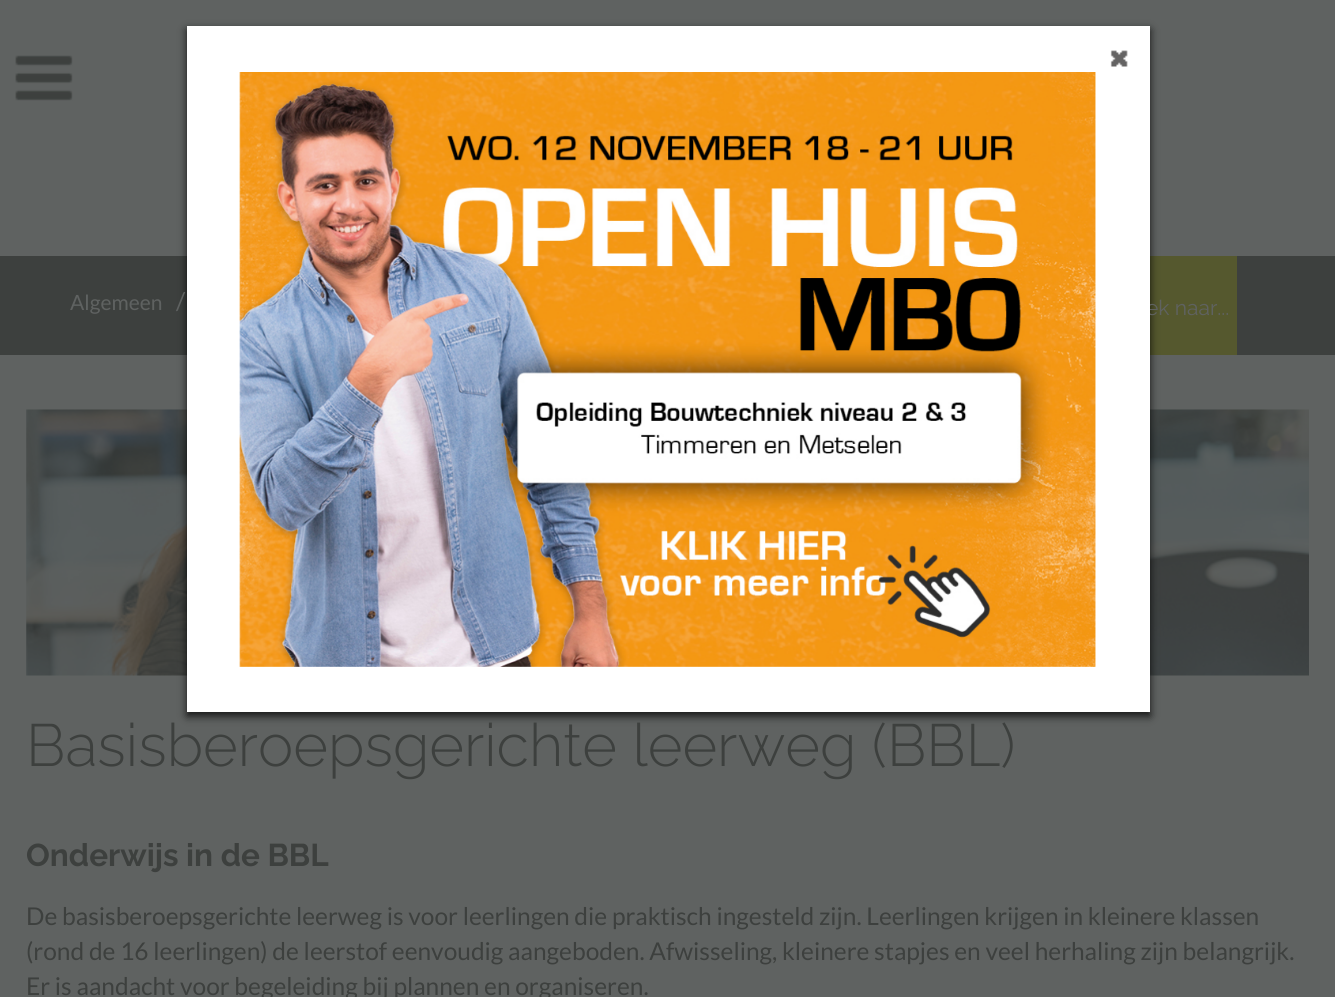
import math
import cairo

surface = cairo.ImageSurface(cairo.Format.RGB24, 1335, 997)
ctx = cairo.Context(surface)
options = cairo.FontOptions()
options.set_hint_metrics(cairo.HintMetrics.OFF)
options.set_hint_style(cairo.HintStyle.NONE)
ctx.set_font_options(options)
ctx.set_miter_limit(4)


def ink(r, g, b):
    ctx.set_source_rgb(r / 255, g / 255, b / 255)


def write(x, y, s, family, size, color, bold=False, italic=False):
    ctx.select_font_face(family, cairo.FontSlant.ITALIC if italic else cairo.FontSlant.NORMAL, cairo.FontWeight.BOLD if bold else cairo.FontWeight.NORMAL)
    ctx.set_font_size(size)
    ink(*color)
    ctx.move_to(x, y)
    ctx.show_text(s)


def block(x, y, w, h, *color):
    ink(*color)
    ctx.rectangle(x, y, w, h)
    ctx.fill()


def round_path(x, y, w, h, r):
    ctx.new_sub_path()
    for i, (u, v) in enumerate([(x + w - r, y + h - r), (x + r, y + h - r), (x + r, y + r), (x + w - r, y + r)]):
        ctx.arc(u, v, r, i * math.pi / 2, (i + 1) * math.pi / 2)
    ctx.close_path()


def blur_box(x, y, w, h, r, blur, alpha):
    ctx.push_group_with_content(cairo.Content.ALPHA)
    ctx.set_operator(cairo.Operator.SOURCE)
    for i in range(15, -16, -2):
        e = blur * i / 6
        if min(w, h) + 2 * e > 0:
            ctx.set_source_rgba(0, 0, 0, alpha * math.erfc((i - 1) / 8.5) / 2)
            round_path(x - e, y - e, w + 2 * e, h + 2 * e, max(0, min(r + e + blur * .6, min(w, h) / 2 + e)))
            ctx.fill()
    ctx.mask(ctx.pop_group())


def paste(path, x, y, w, h):
    ctx.save()
    ctx.set_source_surface(cairo.ImageSurface.create_from_png(path), x, y)
    ctx.rectangle(x, y, w, h)
    ctx.fill()
    ctx.restore()


s1 = dict(family="Raleway Thin", size=21, color=(95, 98, 97))
s2 = dict(family="Lato", size=21, color=(95, 98, 97))
s3 = dict(family="Lato", size=24.5, color=(95, 98, 97))
s4 = dict(family="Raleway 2 Thin", size=59.5, color=(61, 64, 62))
s5 = dict(family="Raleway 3 Thin", size=31.5, color=(61, 64, 62))
s6 = dict(family="Lato", size=24.5, color=(61, 64, 62))

ink(95, 98, 97)
ctx.paint()
block(0, 256, 1335, 99, 61, 64, 62)
block(1150, 256, 87, 99, 85, 88, 46)
paste("pic4.png", 26, 409, 1283, 267)
ink(0, 0, 0)
blur_box(187, 30, 963, 686, 0, 4.5, 0.8)
write(1146, 315, "ek naar...", **s1)
block(187, 26, 963, 686, 255, 255, 255)
paste("pic1.png", 1110, 50, 18, 17)
paste("pic2.png", 239, 72, 857, 595)
paste("pic3.png", 15, 55, 58, 46)
write(70, 310, "Algemeen", **s2)
write(176, 310, "/", **s3)
write(26, 766, "Basisberoepsgerichte leerweg (BBL)", **s4)
write(26, 866, "Onderwijs in de BBL", **s5)
write(26, 925, "De basisberoepsgerichte leerweg is voor leerlingen die praktisch ingesteld zijn. Leerlingen krijgen in kleinere klassen", **s6)
write(26, 960, "(rond de 16 leerlingen) de leerstof eenvoudig aangeboden. Afwisseling, kleinere stapjes en veel herhaling zijn belangrijk.", **s6)
write(26, 995, "Er is aandacht voor begeleiding bij plannen en organiseren.", **s6)
surface.write_to_png("screenshot.png")
